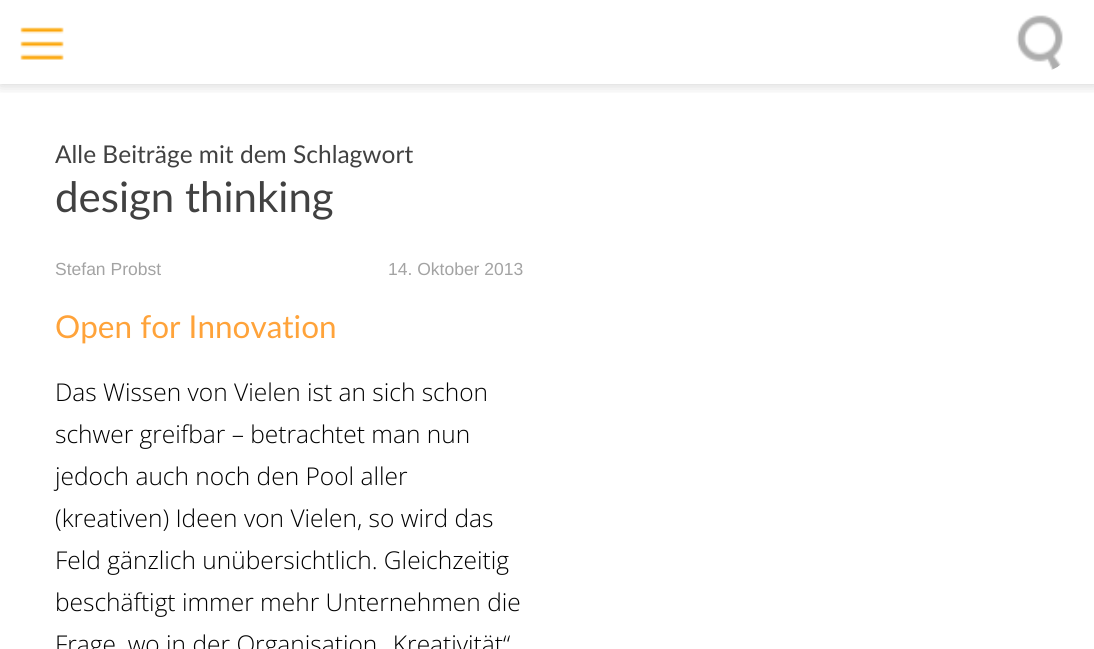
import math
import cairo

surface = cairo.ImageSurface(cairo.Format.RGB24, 1094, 649)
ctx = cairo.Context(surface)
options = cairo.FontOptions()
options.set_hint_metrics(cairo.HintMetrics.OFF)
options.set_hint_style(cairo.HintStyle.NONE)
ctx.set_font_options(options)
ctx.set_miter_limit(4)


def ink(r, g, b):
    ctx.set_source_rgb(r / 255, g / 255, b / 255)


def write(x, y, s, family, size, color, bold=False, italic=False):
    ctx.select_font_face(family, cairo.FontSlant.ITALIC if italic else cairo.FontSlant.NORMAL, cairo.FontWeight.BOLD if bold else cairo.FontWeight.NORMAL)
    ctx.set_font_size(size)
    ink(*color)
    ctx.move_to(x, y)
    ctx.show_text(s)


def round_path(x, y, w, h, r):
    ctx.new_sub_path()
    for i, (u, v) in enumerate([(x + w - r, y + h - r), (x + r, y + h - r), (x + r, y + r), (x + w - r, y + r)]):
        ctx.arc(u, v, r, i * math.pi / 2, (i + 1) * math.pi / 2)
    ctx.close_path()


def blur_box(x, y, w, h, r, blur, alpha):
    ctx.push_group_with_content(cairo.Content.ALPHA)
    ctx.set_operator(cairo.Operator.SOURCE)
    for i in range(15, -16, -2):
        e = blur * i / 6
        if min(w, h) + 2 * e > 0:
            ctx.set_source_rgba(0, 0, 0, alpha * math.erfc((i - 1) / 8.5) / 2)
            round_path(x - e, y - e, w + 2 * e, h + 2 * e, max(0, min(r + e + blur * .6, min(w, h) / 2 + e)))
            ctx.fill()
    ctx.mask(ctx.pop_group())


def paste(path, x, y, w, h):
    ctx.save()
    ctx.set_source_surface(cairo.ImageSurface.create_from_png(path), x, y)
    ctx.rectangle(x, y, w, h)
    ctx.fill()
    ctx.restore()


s1 = dict(family="Lato", size=24.5, color=(65, 65, 65))
s2 = dict(family="Lato", size=42, color=(65, 65, 65))
s3 = dict(family="Liberation Sans", size=17.5, color=(163, 163, 163))
s4 = dict(family="Lato", size=31.5, color=(255, 163, 58))
s5 = dict(family="Open Sans Light", size=24.5, color=(0, 0, 0))

ink(255, 255, 255)
ctx.paint()
ctx.save()
ctx.rectangle(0, 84, 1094, 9)
ctx.clip()
ink(0, 0, 0)
blur_box(0, 0, 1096, 84, 0, 7, 0.2)
ctx.restore()
paste("pic1.png", 20, 27, 44, 33)
paste("pic2.png", 1016, 15, 47, 55)
write(55, 163, "Alle Beiträge mit dem Schlagwort", **s1)
write(55, 212, "design thinking", **s2)
write(55, 275, "Stefan Probst", **s3)
write(388, 275, "14. Oktober 2013", **s3)
write(55, 338, "Open for Innovation", **s4)
write(55, 401, "Das Wissen von Vielen ist an sich schon", **s5)
write(55, 443, "schwer greifbar – betrachtet man nun", **s5)
write(55, 485, "jedoch auch noch den Pool aller", **s5)
write(55, 527, "(kreativen) Ideen von Vielen, so wird das", **s5)
write(55, 569, "Feld gänzlich unübersichtlich. Gleichzeitig", **s5)
write(55, 611, "beschäftigt immer mehr Unternehmen die", **s5)
write(55, 653, "Frage, wo in der Organisation „Kreativität“", **s5)
surface.write_to_png("screenshot.png")
